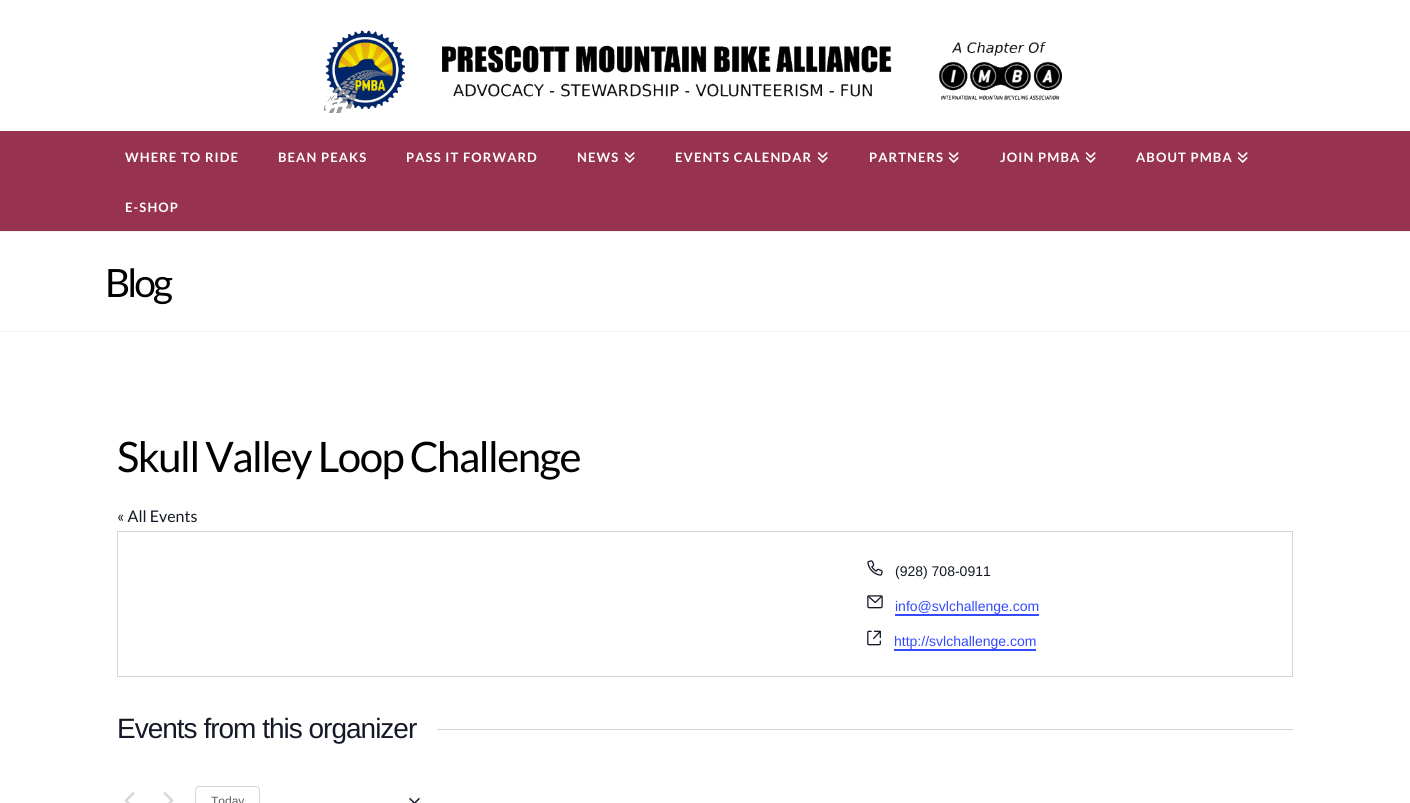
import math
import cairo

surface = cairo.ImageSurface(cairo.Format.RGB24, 1410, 803)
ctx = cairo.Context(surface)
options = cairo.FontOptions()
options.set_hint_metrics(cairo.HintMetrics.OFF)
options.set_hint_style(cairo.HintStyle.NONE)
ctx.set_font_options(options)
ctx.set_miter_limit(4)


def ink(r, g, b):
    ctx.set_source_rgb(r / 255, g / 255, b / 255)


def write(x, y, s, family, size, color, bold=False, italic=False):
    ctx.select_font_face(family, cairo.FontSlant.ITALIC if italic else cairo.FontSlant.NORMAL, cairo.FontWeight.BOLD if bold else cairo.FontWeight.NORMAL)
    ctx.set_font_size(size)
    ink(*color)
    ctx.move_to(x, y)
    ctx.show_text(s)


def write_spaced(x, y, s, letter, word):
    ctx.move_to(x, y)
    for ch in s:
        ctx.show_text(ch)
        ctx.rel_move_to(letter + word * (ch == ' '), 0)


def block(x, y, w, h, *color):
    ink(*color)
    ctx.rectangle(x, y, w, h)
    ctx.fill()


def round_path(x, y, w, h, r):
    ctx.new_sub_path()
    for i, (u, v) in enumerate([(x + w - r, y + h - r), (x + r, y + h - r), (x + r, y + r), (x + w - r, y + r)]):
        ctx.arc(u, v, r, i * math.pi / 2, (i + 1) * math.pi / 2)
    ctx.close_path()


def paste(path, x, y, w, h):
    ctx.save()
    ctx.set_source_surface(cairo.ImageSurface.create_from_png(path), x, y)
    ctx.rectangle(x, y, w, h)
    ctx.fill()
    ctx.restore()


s1 = dict(family="Lato", size=16, color=(20, 24, 39))
s2 = dict(family="Liberation Sans", size=14, color=(20, 24, 39))
s3 = dict(family="Liberation Sans", size=14, color=(51, 74, 255))
s4 = dict(family="Liberation Sans", size=12, color=(93, 93, 93))

ink(255, 255, 255)
ctx.paint()
paste("pic1.png", 323, 30, 739, 83)
block(0, 131, 1410, 100, 151, 50, 80)
ctx.select_font_face("Lato", cairo.FontSlant.NORMAL, cairo.FontWeight.BOLD)
ctx.set_font_size(13)
ink(255, 255, 255)
write_spaced(125, 162, "WHERE TO RIDE", 1.1, 0)
write_spaced(278, 162, "BEAN PEAKS", 1.1, 0)
write_spaced(406, 162, "PASS IT FORWARD", 1.1, 0)
write_spaced(577, 162, "NEWS", 1.1, 0)
paste("pic2.png", 624, 152, 11, 11)
write_spaced(675, 162, "EVENTS CALENDAR", 1.1, 0)
paste("pic2.png", 817, 152, 11, 11)
write_spaced(869, 162, "PARTNERS", 1.1, 0)
paste("pic2.png", 948, 152, 11, 11)
write_spaced(1000, 162, "JOIN PMBA", 1.1, 0)
paste("pic2.png", 1085, 152, 11, 11)
write_spaced(1136, 162, "ABOUT PMBA", 1.1, 0)
paste("pic2.png", 1237, 152, 11, 11)
write_spaced(125, 212, "E-SHOP", 1.1, 0)
block(0, 231, 1410, 1, 242, 242, 242)
block(0, 331, 1410, 1, 242, 242, 242)
ctx.select_font_face("Lato")
ctx.set_font_size(39)
ink(0, 0, 0)
write_spaced(105, 297, "Blog", -3, 0)
ctx.set_font_size(42)
write_spaced(117, 472, "Skull Valley Loop Challenge", -1.5, 0)
write(117, 522, "« All Events", **s1)
ctx.rectangle(117.5, 531.5, 1175, 145)
ink(213, 213, 213)
ctx.set_line_width(1)
ctx.stroke()
paste("pic3.png", 867, 560, 16, 16)
write(895, 576, "(928) 708-0911", **s2)
paste("pic4.png", 867, 595, 16, 14)
write(895, 611, "info@svlchallenge.com", **s3)
block(895, 614, 144, 2, 51, 74, 255)
paste("pic5.png", 867, 630, 14, 16)
write(894, 646, "http://svlchallenge.com", **s3)
block(894, 649, 142, 2, 51, 74, 255)
ctx.set_font_size(28)
ink(20, 24, 39)
write_spaced(117, 738, "Events from this organizer", -1, 0)
block(437, 729, 856, 1, 213, 213, 213)
paste("pic6.png", 124, 792, 11, 11)
paste("pic7.png", 163, 792, 11, 11)
round_path(195.5, 786.5, 64, 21, 3.5)
ctx.stroke()
write(211, 805, "Today", **s4)
paste("pic8.png", 409, 797, 11, 6)
surface.write_to_png("screenshot.png")
